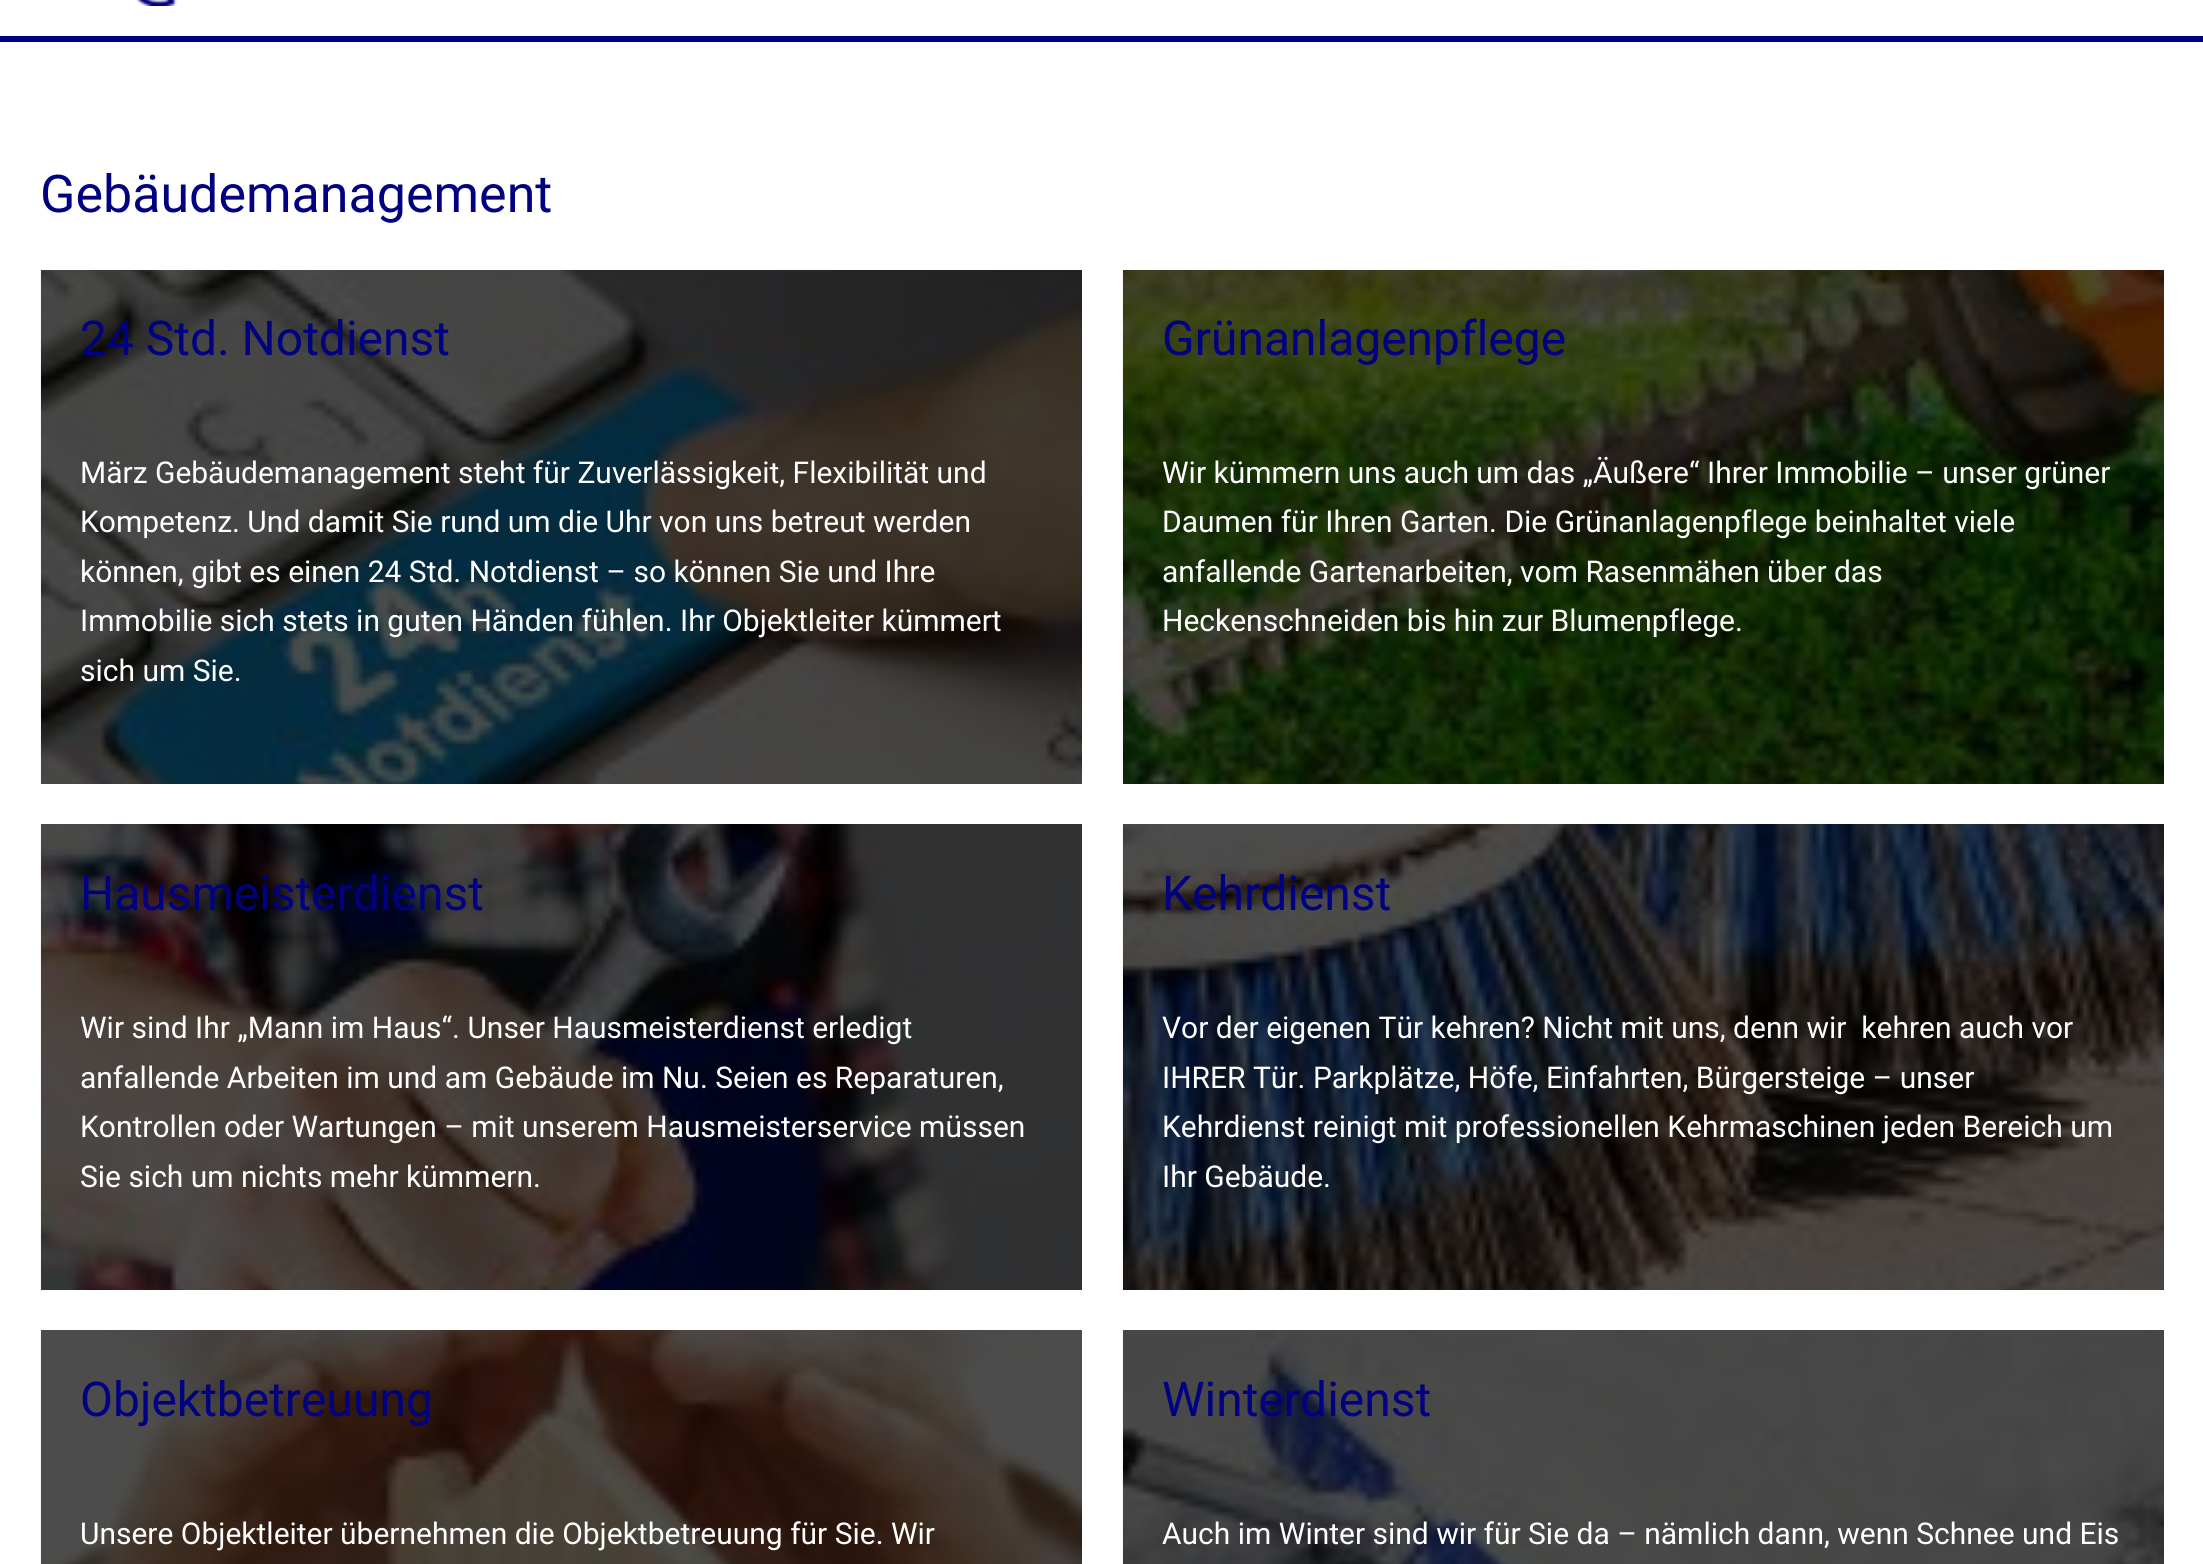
import math
import cairo

surface = cairo.ImageSurface(cairo.Format.RGB24, 2203, 1564)
ctx = cairo.Context(surface)
options = cairo.FontOptions()
options.set_hint_metrics(cairo.HintMetrics.OFF)
options.set_hint_style(cairo.HintStyle.NONE)
ctx.set_font_options(options)
ctx.set_miter_limit(4)


def ink(r, g, b):
    ctx.set_source_rgb(r / 255, g / 255, b / 255)


def write(x, y, s, family, size, color, bold=False, italic=False):
    ctx.select_font_face(family, cairo.FontSlant.ITALIC if italic else cairo.FontSlant.NORMAL, cairo.FontWeight.BOLD if bold else cairo.FontWeight.NORMAL)
    ctx.set_font_size(size)
    ink(*color)
    ctx.move_to(x, y)
    ctx.show_text(s)


def block(x, y, w, h, *color):
    ink(*color)
    ctx.rectangle(x, y, w, h)
    ctx.fill()


def paste(path, x, y, w, h):
    ctx.save()
    ctx.set_source_surface(cairo.ImageSurface.create_from_png(path), x, y)
    ctx.rectangle(x, y, w, h)
    ctx.fill()
    ctx.restore()


s1 = dict(family="Roboto", size=52, color=(0, 0, 128))
s2 = dict(family="Roboto", size=48, color=(0, 0, 128))
s3 = dict(family="Roboto", size=30, color=(255, 255, 255))

ink(255, 255, 255)
ctx.paint()
block(0, 36, 2203, 6, 0, 0, 128)
paste("pic1.png", 136, 0, 41, 6)
write(40, 212, "Gebäudemanagement", **s1)
block(40, 270, 1, 514, 246, 246, 246)
paste("pic2.png", 41, 270, 1041, 514)
write(80, 355, "24 Std. Notdienst", **s2)
write(80, 483, "März Gebäudemanagement steht für Zuverlässigkeit, Flexibilität und", **s3)
write(80, 532, "Kompetenz. Und damit Sie rund um die Uhr von uns betreut werden", **s3)
write(80, 582, "können, gibt es einen 24 Std. Notdienst – so können Sie und Ihre", **s3)
write(80, 631, "Immobilie sich stets in guten Händen fühlen. Ihr Objektleiter kümmert", **s3)
write(80, 681, "sich um Sie.", **s3)
block(1122, 270, 1, 514, 246, 246, 246)
paste("pic3.png", 1123, 270, 1041, 514)
write(1162, 355, "Grünanlagenpflege", **s2)
write(1162, 483, "Wir kümmern uns auch um das „Äußere“ Ihrer Immobilie – unser grüner", **s3)
write(1162, 532, "Daumen für Ihren Garten. Die Grünanlagenpflege beinhaltet viele", **s3)
write(1162, 582, "anfallende Gartenarbeiten, vom Rasenmähen über das", **s3)
write(1162, 631, "Heckenschneiden bis hin zur Blumenpflege.", **s3)
block(40, 824, 1, 466, 246, 246, 246)
paste("pic4.png", 41, 824, 1041, 466)
write(80, 910, "Hausmeisterdienst", **s2)
write(80, 1038, "Wir sind Ihr „Mann im Haus“. Unser Hausmeisterdienst erledigt", **s3)
write(80, 1088, "anfallende Arbeiten im und am Gebäude im Nu. Seien es Reparaturen,", **s3)
write(80, 1137, "Kontrollen oder Wartungen – mit unserem Hausmeisterservice müssen", **s3)
write(80, 1187, "Sie sich um nichts mehr kümmern.", **s3)
block(1122, 824, 1, 466, 246, 246, 246)
paste("pic5.png", 1123, 824, 1041, 466)
write(1162, 910, "Kehrdienst", **s2)
write(1162, 1038, "Vor der eigenen Tür kehren? Nicht mit uns, denn wir  kehren auch vor", **s3)
write(1162, 1088, "IHRER Tür. Parkplätze, Höfe, Einfahrten, Bürgersteige – unser", **s3)
write(1162, 1137, "Kehrdienst reinigt mit professionellen Kehrmaschinen jeden Bereich um", **s3)
write(1162, 1187, "Ihr Gebäude.", **s3)
block(40, 1330, 1, 234, 246, 246, 246)
paste("pic6.png", 41, 1330, 1041, 234)
write(80, 1416, "Objektbetreuung", **s2)
write(80, 1544, "Unsere Objektleiter übernehmen die Objektbetreuung für Sie. Wir", **s3)
block(1122, 1330, 1, 234, 246, 246, 246)
paste("pic7.png", 1123, 1330, 1041, 234)
write(1162, 1416, "Winterdienst", **s2)
write(1162, 1544, "Auch im Winter sind wir für Sie da – nämlich dann, wenn Schnee und Eis", **s3)
surface.write_to_png("screenshot.png")
